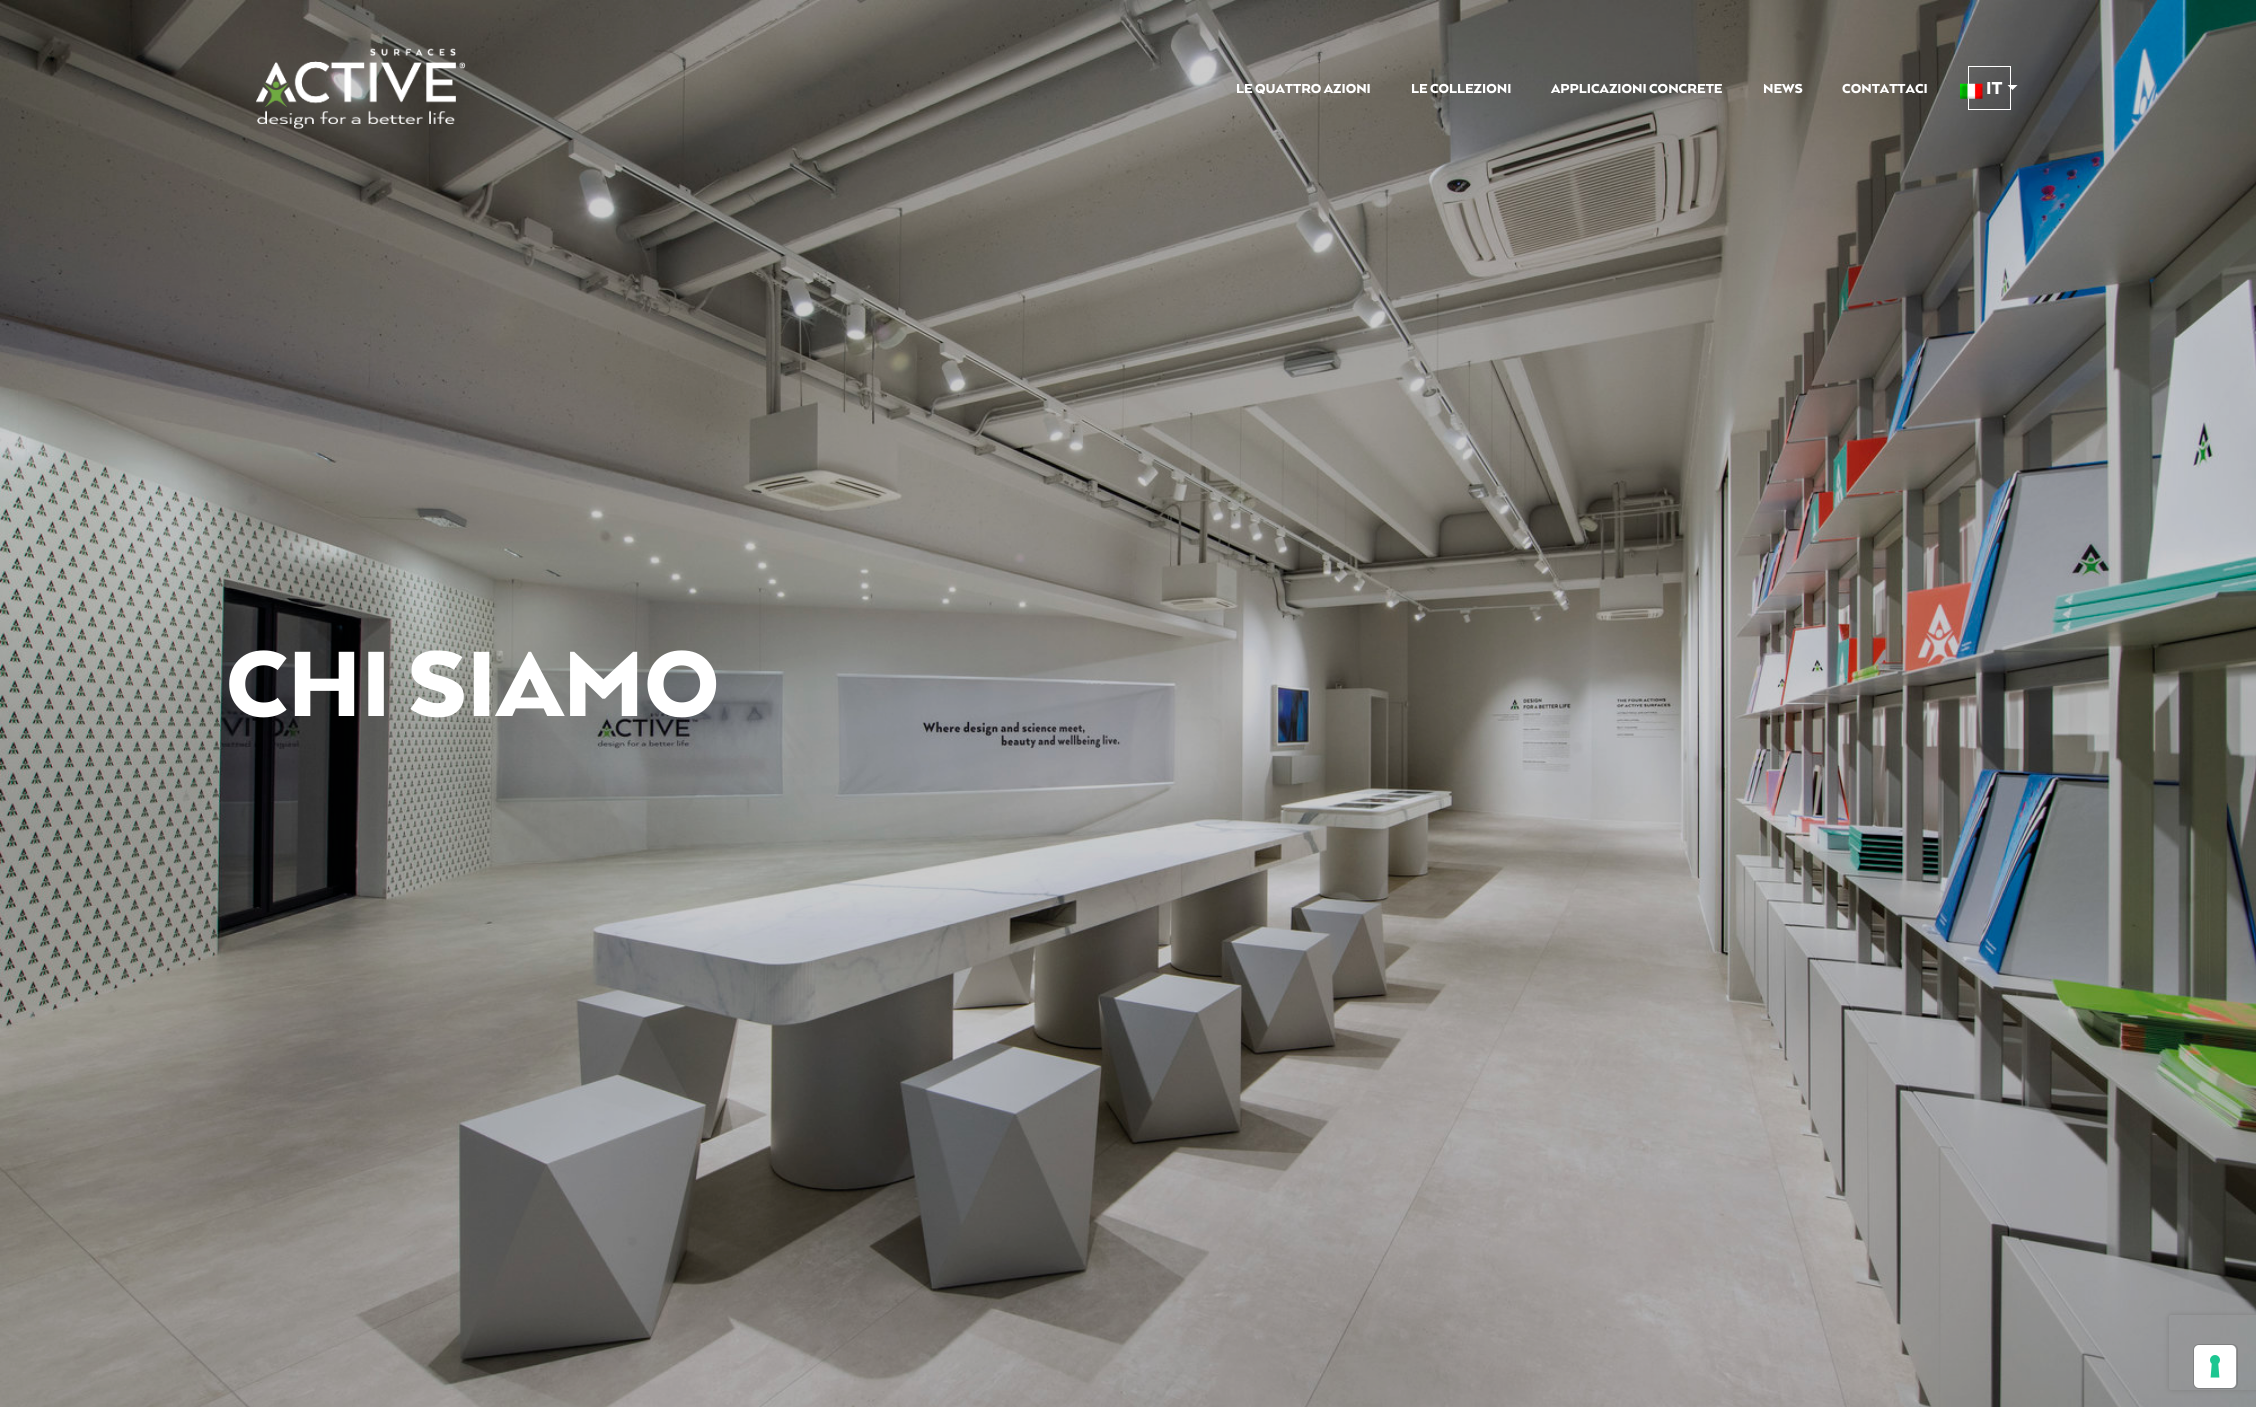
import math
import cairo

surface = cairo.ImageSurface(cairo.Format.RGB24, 2256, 1407)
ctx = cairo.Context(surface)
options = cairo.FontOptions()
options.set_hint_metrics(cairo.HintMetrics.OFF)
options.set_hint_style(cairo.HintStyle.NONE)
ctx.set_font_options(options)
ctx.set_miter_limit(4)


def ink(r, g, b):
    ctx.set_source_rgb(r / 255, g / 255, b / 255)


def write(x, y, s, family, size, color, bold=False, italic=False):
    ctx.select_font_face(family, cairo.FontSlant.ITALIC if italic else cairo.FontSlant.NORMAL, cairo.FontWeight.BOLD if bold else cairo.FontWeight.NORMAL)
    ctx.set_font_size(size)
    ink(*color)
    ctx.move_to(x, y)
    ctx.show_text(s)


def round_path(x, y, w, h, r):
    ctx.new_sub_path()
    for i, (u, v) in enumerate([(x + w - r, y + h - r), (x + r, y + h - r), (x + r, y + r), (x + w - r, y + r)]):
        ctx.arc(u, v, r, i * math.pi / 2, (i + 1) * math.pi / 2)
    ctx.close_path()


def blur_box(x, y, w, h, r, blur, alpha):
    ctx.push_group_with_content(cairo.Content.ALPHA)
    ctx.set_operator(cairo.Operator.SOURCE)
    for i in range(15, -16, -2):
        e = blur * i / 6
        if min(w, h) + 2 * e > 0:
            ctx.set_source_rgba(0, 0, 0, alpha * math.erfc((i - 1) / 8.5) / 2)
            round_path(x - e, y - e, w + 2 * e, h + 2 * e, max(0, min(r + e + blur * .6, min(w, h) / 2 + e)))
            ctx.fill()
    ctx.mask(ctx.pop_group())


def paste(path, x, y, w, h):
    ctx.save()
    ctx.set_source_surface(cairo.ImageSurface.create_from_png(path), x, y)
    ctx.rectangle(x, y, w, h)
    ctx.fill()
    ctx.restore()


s1 = dict(family="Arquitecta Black", size=15, color=(255, 255, 255))
s2 = dict(family="Arquitecta Black", size=20, color=(255, 255, 255))
s3 = dict(family="Arquitecta Black", size=107, color=(255, 255, 255))

ink(255, 255, 255)
ctx.paint()
paste("pic3.png", 0, 0, 2256, 1407)
paste("pic1.png", 256, 48, 210, 81)
write(1236, 93, "LE QUATTRO AZIONI", **s1)
write(1411, 93, "LE COLLEZIONI", **s1)
write(1551, 93, "APPLICAZIONI CONCRETE", **s1)
write(1763, 93, "NEWS", **s1)
write(1842, 93, "CONTATTACI", **s1)
ctx.rectangle(1968.5, 66.5, 42, 43)
ctx.set_line_width(1)
ctx.stroke()
paste("pic2.png", 1960, 83, 23, 16)
write(1986, 94, "IT", **s2)
ctx.new_path()
ctx.move_to(2007.5, 85)
ctx.line_to(2017.5, 85)
ctx.line_to(2012.5, 90)
ctx.close_path()
ctx.fill()
write(226, 716, "CHI SIAMO", **s3)
ctx.save()
ctx.set_fill_rule(cairo.FillRule.EVEN_ODD)
ctx.new_path()
ctx.move_to(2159, 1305)
ctx.line_to(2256, 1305)
ctx.line_to(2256, 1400)
ctx.line_to(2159, 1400)
ctx.close_path()
ctx.move_to(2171.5, 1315)
ctx.line_to(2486.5, 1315)
ctx.curve_to(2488, 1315, 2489, 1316, 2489, 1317.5)
ctx.line_to(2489, 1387.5)
ctx.curve_to(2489, 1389, 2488, 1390, 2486.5, 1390)
ctx.line_to(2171.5, 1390)
ctx.curve_to(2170, 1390, 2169, 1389, 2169, 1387.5)
ctx.line_to(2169, 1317.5)
ctx.curve_to(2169, 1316, 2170, 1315, 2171.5, 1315)
ctx.close_path()
ctx.clip()
ink(128, 128, 128)
blur_box(2169, 1315, 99, 75, 2.5, 3, 1)
ctx.restore()
round_path(2193.5, 1344.5, 44, 44, 5.5)
ctx.set_source_rgba(0, 0, 0, 0.15)
ctx.stroke()
ink(255, 255, 255)
round_path(2194, 1345, 42, 43, 5)
ctx.fill()
paste("pic4.png", 2210, 1355, 10, 23)
surface.write_to_png("screenshot.png")
